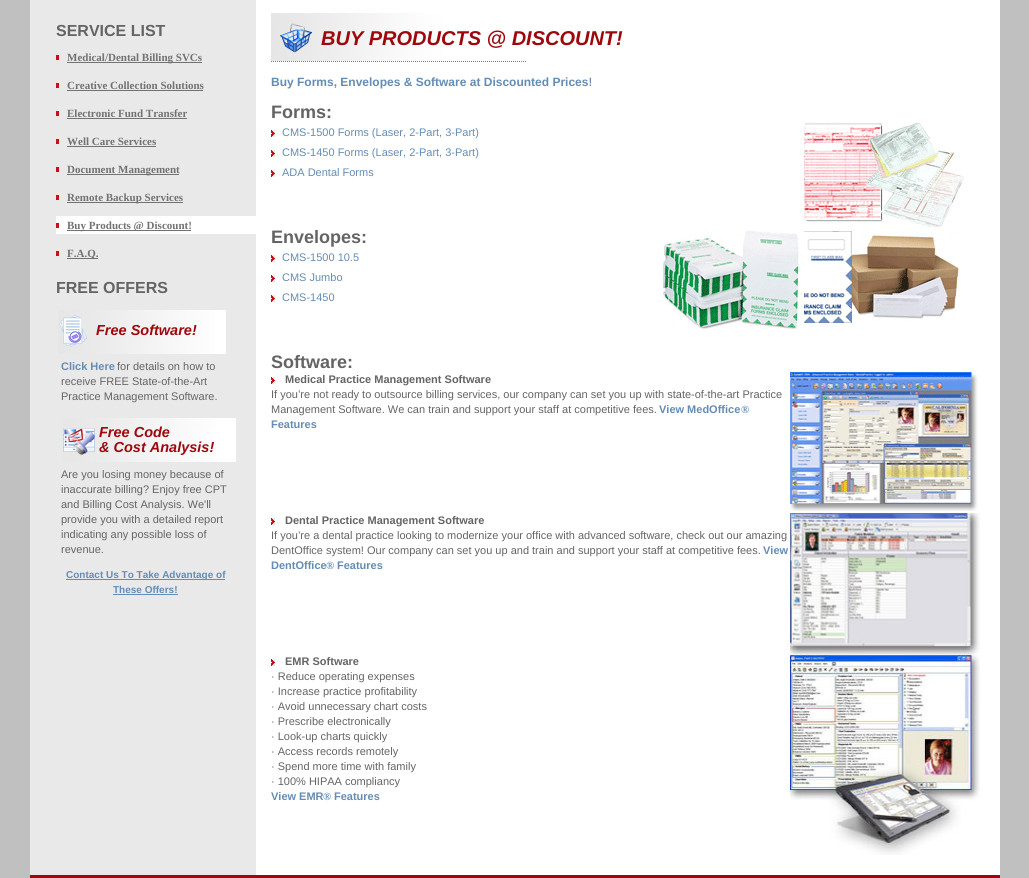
import math
import cairo

surface = cairo.ImageSurface(cairo.Format.RGB24, 1029, 878)
ctx = cairo.Context(surface)
options = cairo.FontOptions()
options.set_hint_metrics(cairo.HintMetrics.OFF)
options.set_hint_style(cairo.HintStyle.NONE)
ctx.set_font_options(options)
ctx.set_miter_limit(4)


def ink(r, g, b):
    ctx.set_source_rgb(r / 255, g / 255, b / 255)


def write(x, y, s, family, size, color, bold=False, italic=False):
    ctx.select_font_face(family, cairo.FontSlant.ITALIC if italic else cairo.FontSlant.NORMAL, cairo.FontWeight.BOLD if bold else cairo.FontWeight.NORMAL)
    ctx.set_font_size(size)
    ink(*color)
    ctx.move_to(x, y)
    ctx.show_text(s)


def block(x, y, w, h, *color):
    ink(*color)
    ctx.rectangle(x, y, w, h)
    ctx.fill()


def paste(path, x, y, w, h):
    ctx.save()
    ctx.set_source_surface(cairo.ImageSurface.create_from_png(path), x, y)
    ctx.rectangle(x, y, w, h)
    ctx.fill()
    ctx.restore()


s1 = dict(family="Liberation Sans", size=16, color=(100, 100, 100), bold=True)
s2 = dict(family="Liberation Serif", size=11, color=(114, 114, 114), bold=True)
s3 = dict(family="Liberation Sans", size=14.5, color=(157, 8, 13), bold=True, italic=True)
s4 = dict(family="Liberation Sans", size=11, color=(100, 140, 180), bold=True)
s5 = dict(family="Liberation Sans", size=11, color=(100, 100, 100))
s6 = dict(family="Liberation Sans", size=10, color=(100, 140, 180), bold=True)
s7 = dict(family="Liberation Sans", size=20, color=(157, 8, 13), bold=True, italic=True)
s8 = dict(family="Liberation Sans", size=12, color=(100, 140, 180), bold=True)
s9 = dict(family="Liberation Sans", size=18, color=(100, 100, 100), bold=True)
s10 = dict(family="Liberation Sans", size=11, color=(100, 140, 180))
s11 = dict(family="Liberation Sans", size=11, color=(100, 100, 100), bold=True)
s12 = dict(family="Liberation Serif", size=11, color=(100, 140, 180), bold=True)

ink(192, 192, 192)
ctx.paint()
block(256, 0, 744, 875, 255, 255, 255)
block(30, 0, 226, 875, 233, 233, 233)
write(56, 36, "SERVICE LIST", **s1)
block(56, 55, 3, 5, 197, 17, 23)
block(67, 62, 135, 1, 114, 114, 114)
write(67, 61, "Medical/Dental Billing SVCs", **s2)
block(56, 83, 3, 5, 197, 17, 23)
write(67, 89, "Creative Collection Solutions", **s2)
block(67, 90, 136, 1, 114, 114, 114)
block(56, 111, 3, 5, 197, 17, 23)
write(67, 117, "Electronic Fund Transfer", **s2)
block(67, 118, 120, 1, 114, 114, 114)
block(56, 139, 3, 5, 197, 17, 23)
write(67, 145, "Well Care Services", **s2)
block(67, 146, 89, 1, 114, 114, 114)
block(56, 167, 3, 5, 197, 17, 23)
block(67, 174, 112, 1, 114, 114, 114)
write(67, 173, "Document Management", **s2)
block(56, 195, 3, 5, 197, 17, 23)
block(67, 202, 116, 1, 114, 114, 114)
write(67, 201, "Remote Backup Services", **s2)
block(56, 216, 200, 18, 255, 255, 255)
block(56, 223, 3, 5, 197, 17, 23)
block(67, 230, 124, 1, 114, 114, 114)
write(67, 229, "Buy Products @ Discount!", **s2)
block(56, 251, 3, 5, 197, 17, 23)
block(67, 258, 31, 1, 114, 114, 114)
write(67, 257, "F.A.Q.", **s2)
write(56, 293, "FREE OFFERS", **s1)
paste("pic1.png", 58, 310, 168, 44)
write(96, 335, "Free Software!", **s3)
write(61, 370, "Click Here", **s4)
write(117, 370, "for details on how to", **s5)
write(61, 385, "receive FREE State-of-the-Art", **s5)
write(61, 400, "Practice Management Software.", **s5)
paste("pic2.png", 63, 418, 173, 44)
write(99, 437, "Free Code", **s3)
write(99, 452, "& Cost Analysis!", **s3)
write(61, 478, "Are you losing money because of", **s5)
write(61, 493, "inaccurate billing? Enjoy free CPT", **s5)
write(61, 508, "and Billing Cost Analysis. We'll", **s5)
write(61, 523, "provide you with a detailed report", **s5)
write(61, 538, "indicating any possible loss of", **s5)
write(61, 553, "revenue.", **s5)
block(66, 579, 159, 1, 100, 140, 180)
write(66, 578, "Contact Us To Take Advantage of", **s6)
write(113, 593, "These Offers!", **s6)
block(113, 594, 65, 1, 100, 140, 180)
paste("pic3.png", 271, 13, 255, 49)
write(321, 45, "BUY PRODUCTS @ DISCOUNT!", **s7)
write(271, 86, "Buy Forms, Envelopes & Software at Discounted Prices!", **s8)
write(271, 118, "Forms:", **s9)
paste("pic4.png", 271, 130, 4, 7)
write(282, 136, "CMS-1500 Forms (Laser, 2-Part, 3-Part)", **s10)
paste("pic4.png", 271, 150, 4, 7)
write(282, 156, "CMS-1450 Forms (Laser, 2-Part, 3-Part)", **s10)
paste("pic4.png", 271, 170, 4, 7)
write(282, 176, "ADA Dental Forms", **s10)
paste("pic5.png", 804, 122, 161, 105)
write(271, 243, "Envelopes:", **s9)
paste("pic4.png", 271, 255, 4, 7)
write(282, 261, "CMS-1500 10.5", **s10)
paste("pic4.png", 271, 275, 4, 7)
write(282, 281, "CMS Jumbo", **s10)
paste("pic4.png", 271, 295, 4, 7)
write(282, 301, "CMS-1450", **s10)
paste("pic6.png", 660, 230, 299, 100)
write(271, 368, "Software:", **s9)
paste("pic4.png", 271, 377, 4, 7)
write(285, 383, "Medical Practice Management Software", **s11)
write(271, 398, "If you’re not ready to outsource billing services, our company can set you up with state-of-the-art Practice", **s5)
write(271, 413, "Management Software. We can train and support your staff at competitive fees.", **s5)
write(659, 413, "View MedOffice", **s4)
write(741, 413, "®", **s12)
write(271, 428, "Features", **s4)
paste("pic7.png", 790, 372, 188, 139)
paste("pic4.png", 271, 518, 4, 7)
write(285, 524, "Dental Practice Management Software", **s11)
write(271, 539, "If you’re a dental practice looking to modernize your office with advanced software, check out our amazing", **s5)
write(271, 554, "DentOffice system! Our company can set you up and train and support your staff at competitive fees.", **s5)
write(763, 554, "View", **s4)
write(271, 569, "DentOffice", **s4)
write(326, 569, "®", **s12)
write(337, 569, "Features", **s4)
paste("pic8.png", 790, 513, 190, 141)
paste("pic4.png", 271, 659, 4, 7)
write(285, 665, "EMR Software", **s11)
write(271, 680, "· Reduce operating expenses", **s5)
write(271, 695, "· Increase practice profitability", **s5)
write(271, 710, "· Avoid unnecessary chart costs", **s5)
write(271, 725, "· Prescribe electronically", **s5)
write(271, 740, "· Look-up charts quickly", **s5)
write(271, 755, "· Access records remotely", **s5)
write(271, 770, "· Spend more time with family", **s5)
write(271, 785, "· 100% HIPAA compliancy", **s5)
write(271, 800, "View EMR", **s4)
write(323, 800, "®", **s12)
write(334, 800, "Features", **s4)
paste("pic9.png", 790, 654, 190, 201)
block(30, 875, 970, 3, 157, 8, 13)
surface.write_to_png("screenshot.png")
